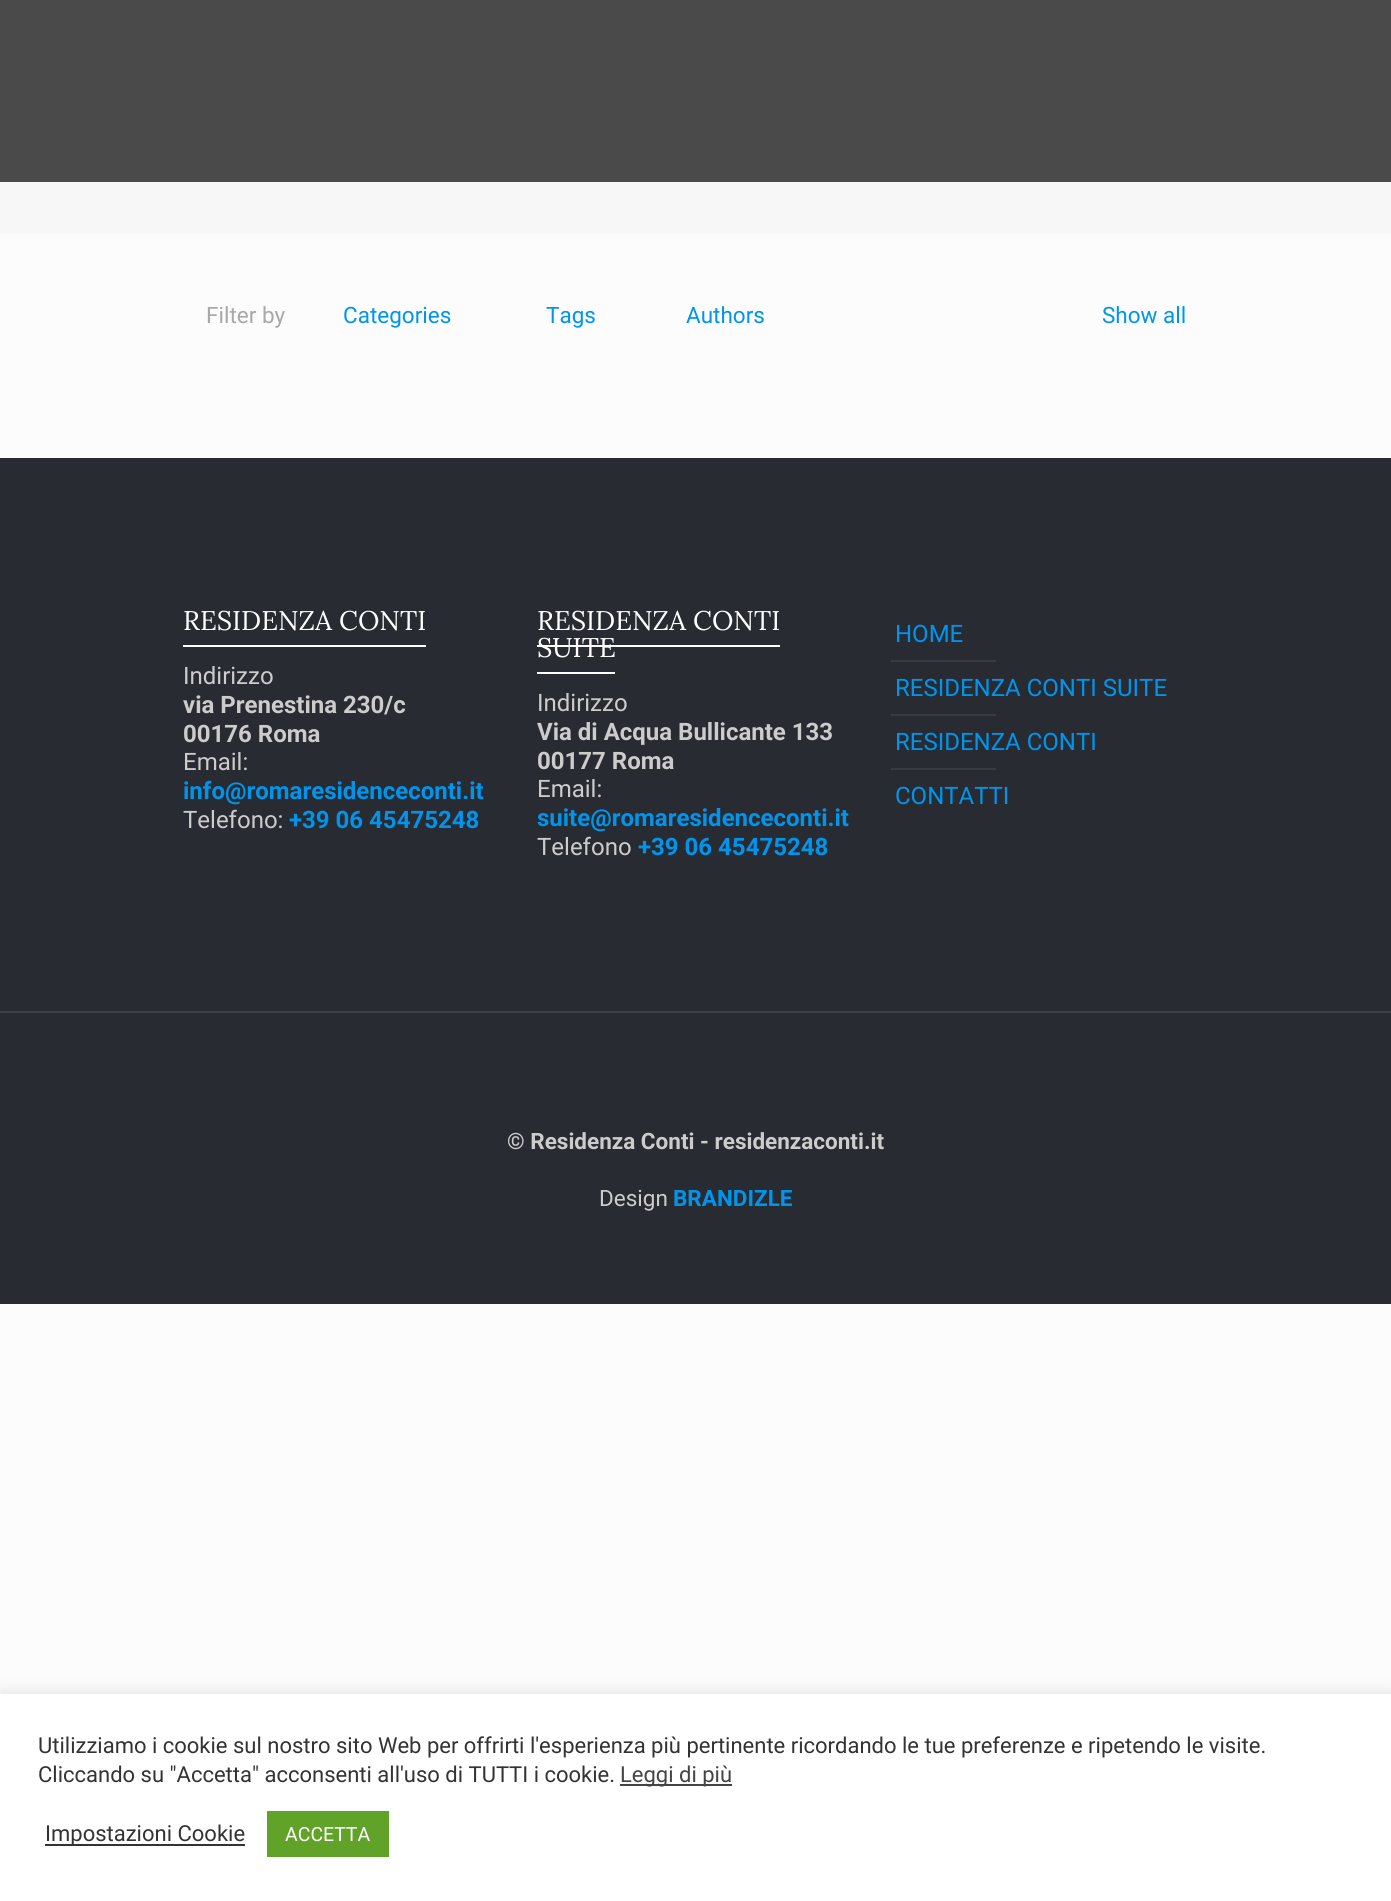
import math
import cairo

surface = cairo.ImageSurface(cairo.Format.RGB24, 1391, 1901)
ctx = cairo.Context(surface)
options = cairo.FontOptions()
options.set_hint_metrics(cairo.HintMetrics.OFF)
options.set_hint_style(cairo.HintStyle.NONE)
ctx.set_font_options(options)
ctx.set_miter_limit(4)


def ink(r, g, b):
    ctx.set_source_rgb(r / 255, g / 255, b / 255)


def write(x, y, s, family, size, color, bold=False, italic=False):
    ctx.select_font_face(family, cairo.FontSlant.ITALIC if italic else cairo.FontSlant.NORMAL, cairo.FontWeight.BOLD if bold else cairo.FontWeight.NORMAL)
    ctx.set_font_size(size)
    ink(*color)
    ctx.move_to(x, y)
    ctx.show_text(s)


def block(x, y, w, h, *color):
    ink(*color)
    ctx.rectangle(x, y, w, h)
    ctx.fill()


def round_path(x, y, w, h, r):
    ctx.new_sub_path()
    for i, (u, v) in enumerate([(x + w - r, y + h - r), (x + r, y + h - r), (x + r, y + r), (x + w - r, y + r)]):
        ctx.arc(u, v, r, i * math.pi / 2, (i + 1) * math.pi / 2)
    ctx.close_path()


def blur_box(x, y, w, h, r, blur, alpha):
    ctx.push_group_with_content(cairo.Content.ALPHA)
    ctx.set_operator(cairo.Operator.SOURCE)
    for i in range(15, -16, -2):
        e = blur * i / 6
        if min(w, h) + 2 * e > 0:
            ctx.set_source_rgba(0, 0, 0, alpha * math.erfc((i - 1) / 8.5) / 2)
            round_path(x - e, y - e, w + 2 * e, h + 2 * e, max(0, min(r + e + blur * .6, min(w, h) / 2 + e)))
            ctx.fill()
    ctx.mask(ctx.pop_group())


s1 = dict(family="Roboto", size=22.5, color=(168, 168, 168))
s2 = dict(family="Roboto", size=22.5, color=(0, 149, 235))
s3 = dict(family="Lora", size=27, color=(255, 255, 255))
s4 = dict(family="Roboto", size=24, color=(204, 204, 204))
s5 = dict(family="Roboto", size=24, color=(204, 204, 204), bold=True)
s6 = dict(family="Roboto", size=24, color=(0, 149, 235), bold=True)
s7 = dict(family="Roboto", size=24, color=(0, 149, 235))
s8 = dict(family="Roboto", size=22.5, color=(204, 204, 204), bold=True)
s9 = dict(family="Roboto", size=22.5, color=(204, 204, 204))
s10 = dict(family="Roboto", size=22.5, color=(0, 149, 235), bold=True)
s11 = dict(family="Roboto", size=22, color=(51, 51, 51))
s12 = dict(family="Roboto", size=22, color=(68, 68, 68))
s13 = dict(family="Roboto", size=19.5, color=(255, 255, 255))

ink(252, 252, 252)
ctx.paint()
block(0, 0, 1391, 234, 247, 247, 247)
ctx.set_source_rgba(0, 0, 0, 0.7)
ctx.rectangle(0, 0, 1391, 182)
ctx.fill()
write(206, 323, "Filter by", **s1)
write(343, 323, "Categories", **s2)
write(546, 323, "Tags", **s2)
write(686, 323, "Authors", **s2)
write(1102, 323, "Show all", **s2)
block(0, 458, 1391, 846, 41, 43, 51)
write(183, 630, "RESIDENZA CONTI", **s3)
block(183, 645, 243, 2, 255, 255, 255)
write(183, 684, "Indirizzo", **s4)
write(183, 713, "via Prenestina 230/c", **s5)
write(183, 742, "00176 Roma", **s5)
write(183, 770, "Email:", **s4)
write(183, 799, "info@romaresidenceconti.it", **s6)
write(183, 828, "Telefono:", **s4)
write(289, 828, "+39 06 45475248", **s6)
write(537, 630, "RESIDENZA CONTI", **s3)
block(537, 645, 243, 2, 255, 255, 255)
write(537, 657, "SUITE", **s3)
block(537, 672, 78, 2, 255, 255, 255)
write(537, 711, "Indirizzo", **s4)
write(537, 740, "Via di Acqua Bullicante 133", **s5)
write(537, 769, "00177 Roma", **s5)
write(537, 797, "Email:", **s4)
write(537, 826, "suite@romaresidenceconti.it", **s6)
write(537, 855, "Telefono", **s4)
write(638, 855, "+39 06 45475248", **s6)
write(895, 642, "HOME", **s7)
block(891, 660, 105, 2, 57, 59, 65)
write(895, 696, "RESIDENZA CONTI SUITE", **s7)
block(891, 714, 105, 2, 57, 59, 65)
write(895, 750, "RESIDENZA CONTI", **s7)
block(891, 768, 105, 2, 57, 59, 65)
write(895, 804, "CONTATTI", **s7)
block(0, 1011, 1391, 2, 62, 64, 71)
write(507, 1149, "© Residenza Conti - residenzaconti.it", **s8)
write(599, 1206, "Design", **s9)
write(673, 1206, "BRANDIZLE", **s10)
ink(172, 171, 171)
blur_box(0, 1692, 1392, 209, 0, 7.5, 0.3)
block(0, 1694, 1391, 207, 255, 255, 255)
write(38, 1753, "Utilizziamo i cookie sul nostro sito Web per offrirti l'esperienza più pertinente ricordando le tue preferenze e ripetendo le visite.", **s11)
write(38, 1782, "Cliccando su \"Accetta\" acconsenti all'uso di TUTTI i cookie.", **s11)
block(620, 1784, 112, 2, 68, 68, 68)
write(620, 1782, "Leggi di più", **s12)
block(45, 1844, 200, 2, 51, 51, 51)
write(45, 1841, "Impostazioni Cookie", **s11)
block(267, 1811, 122, 46, 97, 162, 41)
write(285, 1841, "ACCETTA", **s13)
surface.write_to_png("screenshot.png")
